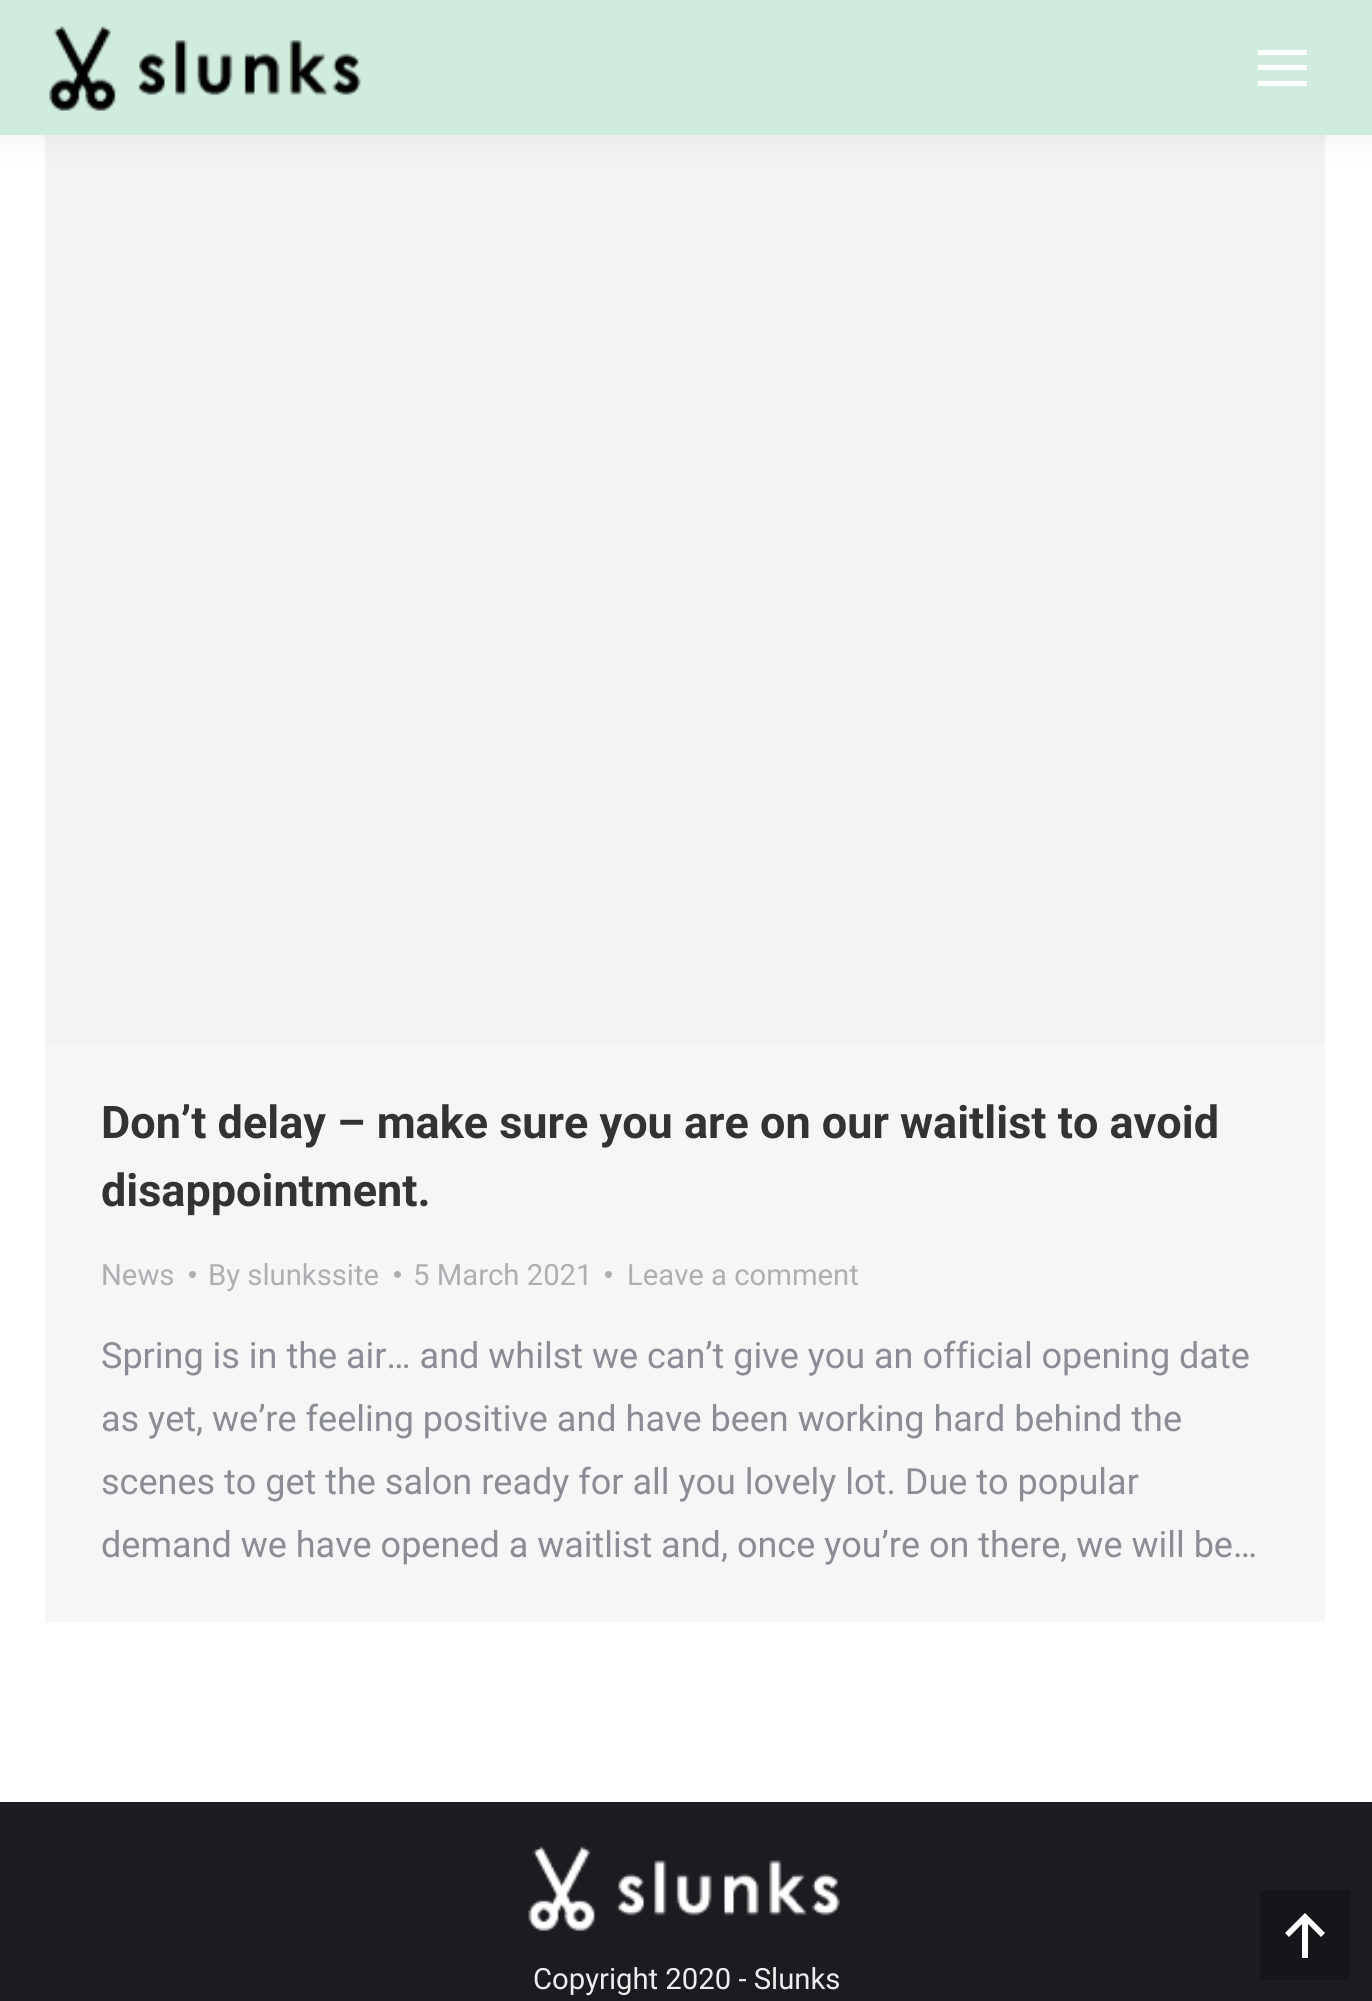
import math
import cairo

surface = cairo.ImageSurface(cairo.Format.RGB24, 1372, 2001)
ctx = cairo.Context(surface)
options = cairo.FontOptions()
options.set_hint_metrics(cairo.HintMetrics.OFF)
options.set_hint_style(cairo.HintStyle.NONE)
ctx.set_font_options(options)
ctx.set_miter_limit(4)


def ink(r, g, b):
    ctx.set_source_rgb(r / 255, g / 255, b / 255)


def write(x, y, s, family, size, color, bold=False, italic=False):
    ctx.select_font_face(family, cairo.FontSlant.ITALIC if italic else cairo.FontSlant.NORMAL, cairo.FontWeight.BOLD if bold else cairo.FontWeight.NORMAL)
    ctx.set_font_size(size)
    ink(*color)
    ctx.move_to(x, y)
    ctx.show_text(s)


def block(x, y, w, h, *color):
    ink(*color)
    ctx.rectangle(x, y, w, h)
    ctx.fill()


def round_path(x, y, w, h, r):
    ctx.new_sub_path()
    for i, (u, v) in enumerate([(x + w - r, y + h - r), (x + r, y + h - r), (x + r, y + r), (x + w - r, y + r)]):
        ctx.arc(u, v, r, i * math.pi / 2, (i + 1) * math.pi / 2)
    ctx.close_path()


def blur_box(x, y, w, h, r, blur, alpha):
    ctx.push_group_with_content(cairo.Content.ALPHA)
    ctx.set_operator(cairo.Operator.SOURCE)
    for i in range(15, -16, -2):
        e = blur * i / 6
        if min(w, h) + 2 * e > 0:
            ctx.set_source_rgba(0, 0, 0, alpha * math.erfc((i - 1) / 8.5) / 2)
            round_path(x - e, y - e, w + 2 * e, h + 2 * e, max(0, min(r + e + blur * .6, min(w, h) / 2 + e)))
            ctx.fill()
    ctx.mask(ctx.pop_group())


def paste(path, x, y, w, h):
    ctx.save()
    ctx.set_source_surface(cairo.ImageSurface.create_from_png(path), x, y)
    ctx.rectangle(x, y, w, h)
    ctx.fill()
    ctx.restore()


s1 = dict(family="Roboto", size=45, color=(51, 51, 51), bold=True)
s2 = dict(family="Roboto", size=29.25, color=(173, 175, 179))
s3 = dict(family="Roboto", size=36, color=(139, 141, 148))
s4 = dict(family="Roboto", size=29.25, color=(238, 238, 238))

ink(255, 255, 255)
ctx.paint()
block(45, 135, 1280, 909, 243, 243, 243)
ink(0, 0, 0)
blur_box(-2, -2, 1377, 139, 0, 17, 0.07)
block(0, 0, 1372, 135, 208, 236, 221)
paste("pic1.png", 49, 26, 312, 85)
block(1258, 50, 49, 5, 255, 255, 255)
block(1258, 65, 49, 5, 255, 255, 255)
block(1258, 81, 49, 5, 255, 255, 255)
block(45, 1044, 1280, 578, 246, 246, 246)
write(101, 1138, "Don’t delay – make sure you are on our waitlist to avoid", **s1)
write(101, 1206, "disappointment.", **s1)
write(101, 1285, "News", **s2)
ctx.new_path()
ctx.arc(192.5, 1274.5, 3.5, 0, 2 * math.pi)
ctx.fill()
write(208, 1285, "By slunkssite", **s2)
ctx.new_path()
ctx.arc(397.5, 1274.5, 3.5, 0, 2 * math.pi)
ctx.fill()
write(413, 1285, "5 March 2021", **s2)
ctx.new_path()
ctx.arc(608.5, 1274.5, 3.5, 0, 2 * math.pi)
ctx.fill()
write(627, 1285, "Leave a comment", **s2)
write(101, 1368, "Spring is in the air… and whilst we can’t give you an official opening date", **s3)
write(101, 1431, "as yet, we’re feeling positive and have been working hard behind the", **s3)
write(101, 1494, "scenes to get the salon ready for all you lovely lot. Due to popular", **s3)
write(101, 1557, "demand we have opened a waitlist and, once you’re on there, we will be…", **s3)
block(0, 1802, 1372, 199, 26, 28, 32)
paste("pic2.png", 528, 1846, 312, 86)
write(533, 1989, "Copyright 2020 - Slunks", **s4)
block(1260, 1890, 90, 90, 21, 22, 26)
ink(255, 255, 255)
ctx.new_path()
ctx.move_to(1285, 1933)
ctx.line_to(1289, 1937)
ctx.line_to(1302, 1924)
ctx.line_to(1302, 1958)
ctx.line_to(1308, 1958)
ctx.line_to(1308, 1924)
ctx.line_to(1321, 1937)
ctx.line_to(1325, 1933)
ctx.line_to(1305, 1913)
ctx.close_path()
ctx.fill()
surface.write_to_png("screenshot.png")
